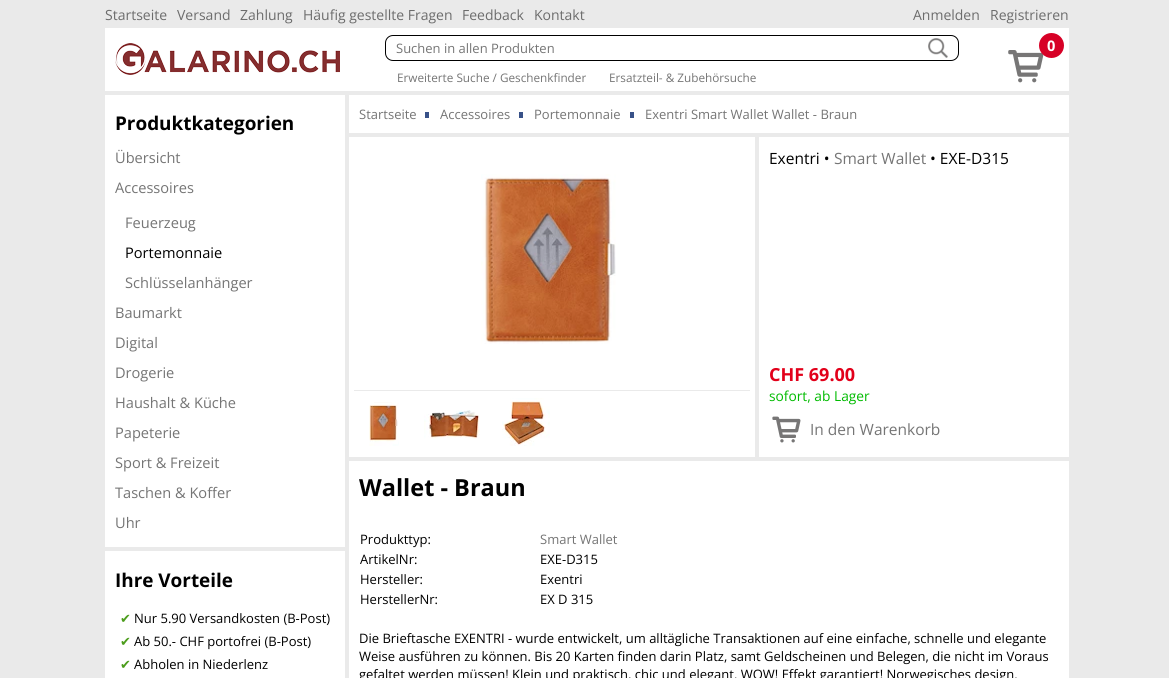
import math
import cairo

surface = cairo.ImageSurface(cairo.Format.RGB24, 1169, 678)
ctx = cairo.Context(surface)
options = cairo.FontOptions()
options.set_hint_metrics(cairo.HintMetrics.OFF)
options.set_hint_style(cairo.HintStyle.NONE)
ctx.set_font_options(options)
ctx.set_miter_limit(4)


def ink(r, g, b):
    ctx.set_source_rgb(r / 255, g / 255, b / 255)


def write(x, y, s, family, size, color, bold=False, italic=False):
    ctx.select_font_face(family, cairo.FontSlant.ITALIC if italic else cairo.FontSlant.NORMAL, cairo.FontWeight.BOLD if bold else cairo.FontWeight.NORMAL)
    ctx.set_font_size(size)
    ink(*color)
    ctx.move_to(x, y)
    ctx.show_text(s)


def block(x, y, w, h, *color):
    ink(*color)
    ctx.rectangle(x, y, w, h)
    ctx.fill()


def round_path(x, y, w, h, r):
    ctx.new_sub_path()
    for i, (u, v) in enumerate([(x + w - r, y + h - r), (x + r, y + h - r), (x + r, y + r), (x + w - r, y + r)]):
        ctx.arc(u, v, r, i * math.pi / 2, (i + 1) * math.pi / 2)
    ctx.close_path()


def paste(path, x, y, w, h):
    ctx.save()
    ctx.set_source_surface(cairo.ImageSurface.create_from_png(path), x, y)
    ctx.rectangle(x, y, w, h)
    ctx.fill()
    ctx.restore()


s1 = dict(family="Open Sans", size=14, color=(108, 108, 108))
s2 = dict(family="Open Sans", size=13, color=(117, 117, 117))
s3 = dict(family="Open Sans", size=11.75, color=(117, 117, 117))
s4 = dict(family="Open Sans", size=14.6, color=(255, 255, 255), bold=True)
s5 = dict(family="Open Sans", size=18.9, color=(0, 0, 0), bold=True)
s6 = dict(family="Open Sans", size=14.6, color=(117, 117, 117))
s7 = dict(family="Open Sans", size=14.6, color=(0, 0, 0))
s8 = dict(family="Open Sans", size=15.5, color=(0, 0, 0))
s9 = dict(family="Open Sans", size=15.5, color=(117, 117, 117))
s10 = dict(family="Open Sans", size=18, color=(226, 0, 26), bold=True)
s11 = dict(family="Open Sans", size=13.75, color=(0, 187, 0))
s12 = dict(family="Open Sans", size=23.5, color=(0, 0, 0), bold=True)
s13 = dict(family="Open Sans", size=13, color=(0, 0, 0))
s14 = dict(family="DejaVu Sans", size=13, color=(76, 157, 28))

ink(234, 234, 234)
ctx.paint()
write(105, 20, "Startseite", **s1)
write(177, 20, "Versand", **s1)
write(240, 20, "Zahlung", **s1)
write(303, 20, "Häufig gestellte Fragen", **s1)
write(462, 20, "Feedback", **s1)
write(534, 20, "Kontakt", **s1)
write(913, 20, "Anmelden", **s1)
write(990, 20, "Registrieren", **s1)
block(105, 28, 964, 63, 255, 255, 255)
paste("pic1.png", 115, 43, 225, 32)
round_path(385.5, 35.5, 573, 25, 7.5)
ink(0, 0, 0)
ctx.set_line_width(1)
ctx.stroke()
write(396, 53, "Suchen in allen Produkten", **s2)
paste("pic2.png", 928, 38, 20, 20)
write(397, 82, "Erweiterte Suche / Geschenkfinder", **s3)
write(609, 82, "Ersatzteil- & Zubehörsuche", **s3)
paste("pic3.png", 1008, 50, 36, 33)
ink(215, 0, 38)
ctx.arc(1051.5, 45.5, 12.5, 0, 2 * math.pi)
ctx.fill()
write(1047, 51, "0", **s4)
block(105, 95, 240, 452, 255, 255, 255)
write(115, 130, "Produktkategorien", **s5)
write(115, 163, "Übersicht", **s6)
write(115, 193, "Accessoires", **s6)
write(125, 228, "Feuerzeug", **s6)
write(125, 258, "Portemonnaie", **s7)
write(125, 288, "Schlüsselanhänger", **s6)
write(115, 318, "Baumarkt", **s6)
write(115, 348, "Digital", **s6)
write(115, 378, "Drogerie", **s6)
write(115, 408, "Haushalt & Küche", **s6)
write(115, 438, "Papeterie", **s6)
write(115, 468, "Sport & Freizeit", **s6)
write(115, 498, "Taschen & Koffer", **s6)
write(115, 528, "Uhr", **s6)
block(349, 95, 720, 38, 255, 255, 255)
write(359, 119, "Startseite", **s2)
block(425, 112, 4, 6, 56, 81, 136)
write(440, 119, "Accessoires", **s2)
block(519, 112, 4, 6, 56, 81, 136)
write(534, 119, "Portemonnaie", **s2)
block(630, 112, 4, 6, 56, 81, 136)
write(645, 119, "Exentri Smart Wallet Wallet - Braun", **s2)
block(349, 137, 406, 320, 255, 255, 255)
paste("pic4.png", 481, 174, 135, 170)
block(354, 390, 396, 1, 234, 234, 234)
paste("pic5.png", 369, 402, 30, 44)
paste("pic6.png", 424, 410, 56, 29)
paste("pic7.png", 502, 398, 48, 48)
block(759, 137, 310, 320, 255, 255, 255)
write(769, 164, "Exentri •", **s8)
write(834, 164, "Smart Wallet", **s9)
write(930, 164, "• EXE-D315", **s8)
write(769, 381, "CHF 69.00", **s10)
write(769, 401, "sofort, ab Lager", **s11)
paste("pic8.png", 772, 416, 29, 27)
write(810, 435, "In den Warenkorb", **s9)
block(349, 461, 720, 217, 255, 255, 255)
write(359, 496, "Wallet - Braun", **s12)
write(360, 544, "Produkttyp:", **s13)
write(540, 544, "Smart Wallet", **s2)
write(360, 564, "ArtikelNr:", **s13)
write(540, 564, "EXE-D315", **s13)
write(360, 584, "Hersteller:", **s13)
write(540, 584, "Exentri", **s13)
write(360, 604, "HerstellerNr:", **s13)
write(540, 604, "EX D 315", **s13)
write(359, 643, "Die Brieftasche EXENTRI - wurde entwickelt, um alltägliche Transaktionen auf eine einfache, schnelle und elegante", **s13)
write(359, 661, "Weise ausführen zu können. Bis 20 Karten finden darin Platz, samt Geldscheinen und Belegen, die nicht im Voraus", **s13)
write(359, 679, "gefaltet werden müssen! Klein und praktisch, chic und elegant. WOW! Effekt garantiert! Norwegisches design.", **s13)
block(105, 551, 240, 127, 255, 255, 255)
write(115, 587, "Ihre Vorteile", **s5)
write(120, 623, "✔", **s14)
write(134, 623, "Nur 5.90 Versandkosten (B-Post)", **s13)
write(120, 646, "✔", **s14)
write(134, 646, "Ab 50.- CHF portofrei (B-Post)", **s13)
write(120, 669, "✔", **s14)
write(134, 669, "Abholen in Niederlenz", **s13)
surface.write_to_png("screenshot.png")
